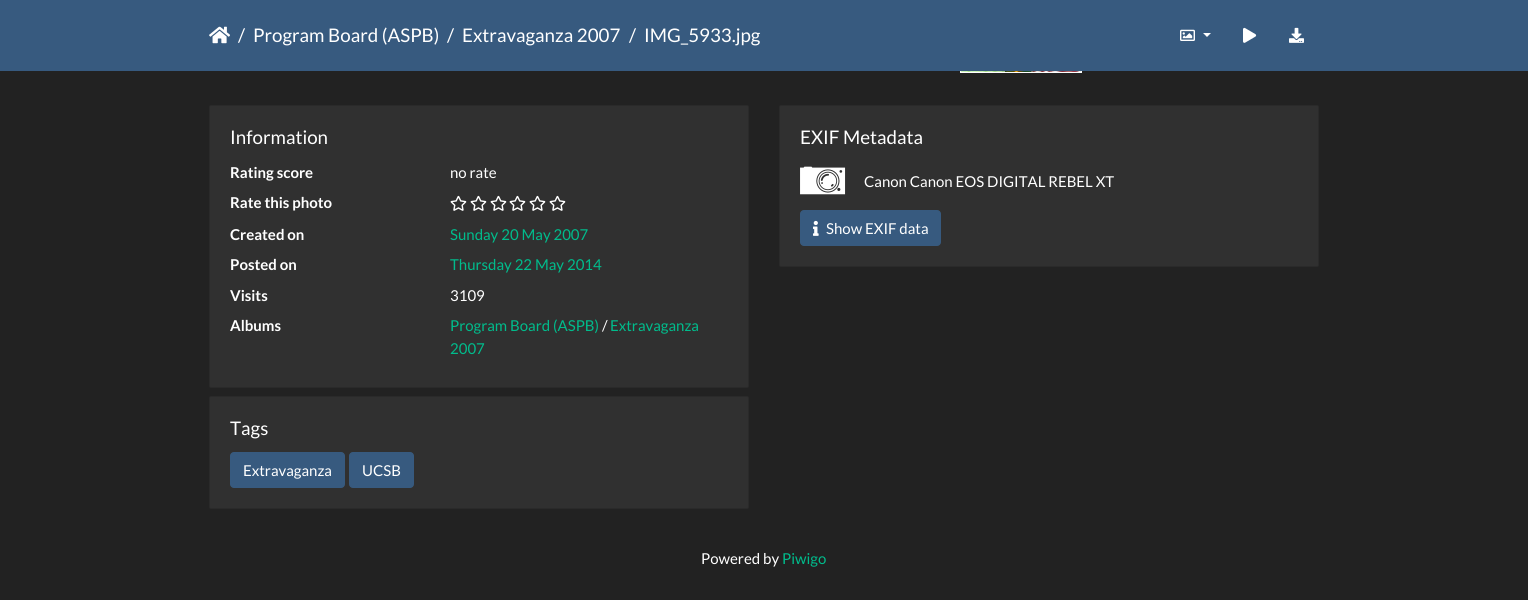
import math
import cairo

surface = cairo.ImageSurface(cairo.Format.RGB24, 1528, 600)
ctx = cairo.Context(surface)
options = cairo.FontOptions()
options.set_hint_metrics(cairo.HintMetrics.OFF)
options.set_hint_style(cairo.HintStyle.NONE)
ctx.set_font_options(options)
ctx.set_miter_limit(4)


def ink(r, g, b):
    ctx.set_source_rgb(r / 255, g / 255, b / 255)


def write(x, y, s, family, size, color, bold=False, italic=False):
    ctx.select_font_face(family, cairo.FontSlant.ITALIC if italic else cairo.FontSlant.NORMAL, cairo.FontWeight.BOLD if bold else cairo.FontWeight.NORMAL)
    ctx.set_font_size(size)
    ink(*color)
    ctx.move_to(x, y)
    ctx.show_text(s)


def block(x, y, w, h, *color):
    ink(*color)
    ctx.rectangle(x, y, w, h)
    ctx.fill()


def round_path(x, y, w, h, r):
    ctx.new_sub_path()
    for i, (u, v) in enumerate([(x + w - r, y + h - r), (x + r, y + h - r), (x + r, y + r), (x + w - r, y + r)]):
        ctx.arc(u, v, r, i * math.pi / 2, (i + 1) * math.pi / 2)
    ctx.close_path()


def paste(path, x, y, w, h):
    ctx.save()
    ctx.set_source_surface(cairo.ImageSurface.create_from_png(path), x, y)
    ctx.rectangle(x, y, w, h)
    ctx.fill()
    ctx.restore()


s1 = dict(family="Lato", size=18.75, color=(255, 255, 255))
s2 = dict(family="Lato", size=15, color=(255, 255, 255), bold=True)
s3 = dict(family="Lato", size=15, color=(255, 255, 255))
s4 = dict(family="Lato", size=15, color=(0, 188, 140))

ink(34, 34, 34)
ctx.paint()
ctx.rectangle(960.5, -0.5, 121, 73)
ink(255, 255, 255)
ctx.set_line_width(1)
ctx.stroke()
block(0, 0, 1528, 71, 55, 90, 127)
paste("pic1.png", 209, 26, 21, 18)
write(238, 42, "/", **s1)
write(253, 42, "Program Board (ASPB)", **s1)
write(447, 42, "/", **s1)
write(462, 42, "Extravaganza 2007", **s1)
write(629, 42, "/", **s1)
write(644, 42, "IMG_5933.jpg", **s1)
paste("pic2.png", 1180, 29, 15, 12)
ctx.new_path()
ctx.move_to(1203, 33)
ctx.line_to(1211, 33)
ctx.line_to(1207, 37)
ctx.close_path()
ctx.fill()
paste("pic3.png", 1243, 27, 14, 16)
paste("pic4.png", 1289, 27, 15, 16)
paste("pic5.png", 961, 71, 120, 1)
ink(48, 48, 48)
round_path(209.5, 105.5, 539, 282, 1.5)
ctx.fill_preserve()
ink(42, 42, 42)
ctx.stroke()
write(230, 144, "Information", **s1)
write(230, 178, "Rating score", **s2)
write(450, 178, "no rate", **s3)
write(230, 208, "Rate this photo", **s2)
paste("pic6.png", 450, 195, 17, 16)
paste("pic6.png", 470, 195, 17, 16)
paste("pic6.png", 490, 195, 17, 16)
paste("pic6.png", 509, 195, 17, 16)
paste("pic6.png", 529, 195, 17, 16)
paste("pic6.png", 549, 195, 17, 16)
write(230, 240, "Created on", **s2)
write(450, 240, "Sunday 20 May 2007", **s4)
write(230, 270, "Posted on", **s2)
write(450, 270, "Thursday 22 May 2014", **s4)
write(230, 301, "Visits", **s2)
write(450, 301, "3109", **s3)
write(230, 331, "Albums", **s2)
write(450, 331, "Program Board (ASPB)", **s4)
write(602, 331, "/", **s3)
write(610, 331, "Extravaganza", **s4)
write(450, 354, "2007", **s4)
ink(48, 48, 48)
round_path(209.5, 396.5, 539, 112, 1.5)
ctx.fill_preserve()
ink(42, 42, 42)
ctx.stroke()
write(230, 435, "Tags", **s1)
ink(55, 90, 127)
round_path(230.5, 452.5, 114, 35, 3.5)
ctx.fill_preserve()
ctx.stroke()
write(243, 476, "Extravaganza", **s3)
ink(55, 90, 127)
round_path(349.5, 452.5, 64, 35, 3.5)
ctx.fill_preserve()
ctx.stroke()
write(362, 476, "UCSB", **s3)
ink(48, 48, 48)
round_path(779.5, 105.5, 539, 161, 1.5)
ctx.fill_preserve()
ink(42, 42, 42)
ctx.stroke()
write(800, 144, "EXIF Metadata", **s1)
paste("pic7.png", 800, 166, 46, 29)
write(864, 187, "Canon Canon EOS DIGITAL REBEL XT", **s3)
ink(55, 90, 127)
round_path(800.5, 210.5, 140, 35, 3.5)
ctx.fill_preserve()
ctx.stroke()
paste("pic8.png", 813, 220, 6, 16)
write(826, 234, "Show EXIF data", **s3)
write(701, 564, "Powered by", **s3)
write(782, 564, "Piwigo", **s4)
surface.write_to_png("screenshot.png")
